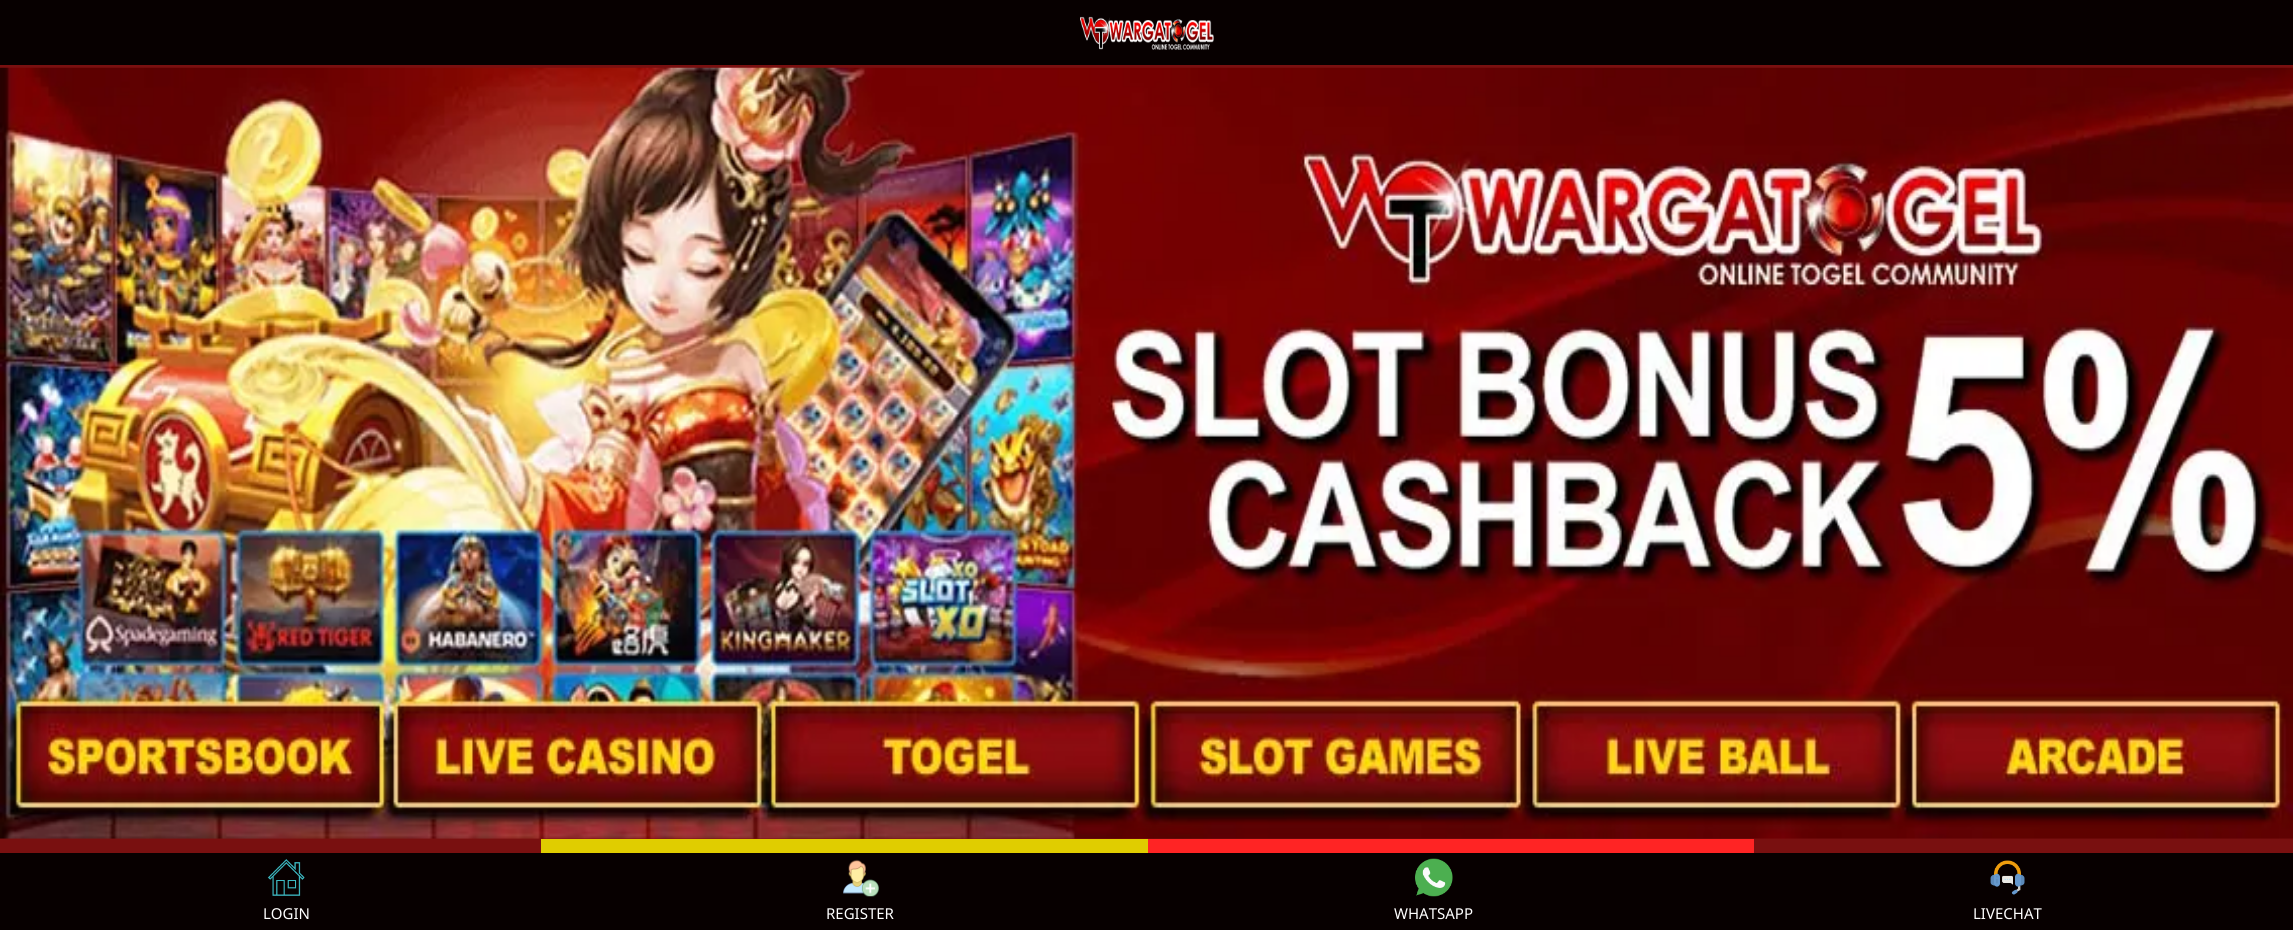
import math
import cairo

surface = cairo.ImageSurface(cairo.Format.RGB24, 2293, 930)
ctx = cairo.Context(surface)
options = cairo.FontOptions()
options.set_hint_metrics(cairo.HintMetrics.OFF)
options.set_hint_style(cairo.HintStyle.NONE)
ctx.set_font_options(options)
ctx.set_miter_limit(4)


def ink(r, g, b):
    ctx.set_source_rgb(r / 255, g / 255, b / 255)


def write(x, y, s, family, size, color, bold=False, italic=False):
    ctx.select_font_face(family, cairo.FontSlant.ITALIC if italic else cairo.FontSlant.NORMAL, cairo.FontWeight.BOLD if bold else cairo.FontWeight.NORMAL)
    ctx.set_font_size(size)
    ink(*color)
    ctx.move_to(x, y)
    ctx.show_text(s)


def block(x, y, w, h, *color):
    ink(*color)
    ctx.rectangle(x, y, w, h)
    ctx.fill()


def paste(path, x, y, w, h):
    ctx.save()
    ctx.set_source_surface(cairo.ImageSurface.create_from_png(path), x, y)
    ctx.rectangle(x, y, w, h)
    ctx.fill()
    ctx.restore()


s1 = dict(family="Noto Sans", size=15, color=(255, 255, 255))

ink(121, 16, 16)
ctx.paint()
block(0, 0, 2293, 65, 7, 0, 0)
paste("pic1.png", 1080, 16, 134, 34)
paste("pic2.png", 0, 67, 2293, 772)
block(541, 839, 607, 14, 224, 205, 0)
block(1148, 839, 606, 14, 255, 36, 36)
block(0, 853, 2293, 77, 7, 0, 0)
paste("pic3.png", 267, 859, 38, 37)
write(263, 919, "LOGIN", **s1)
paste("pic4.png", 843, 859, 36, 38)
write(826, 919, "REGISTER", **s1)
paste("pic5.png", 1415, 858, 38, 39)
write(1394, 919, "WHATSAPP", **s1)
paste("pic6.png", 1990, 860, 35, 35)
write(1973, 919, "LIVECHAT", **s1)
surface.write_to_png("screenshot.png")
